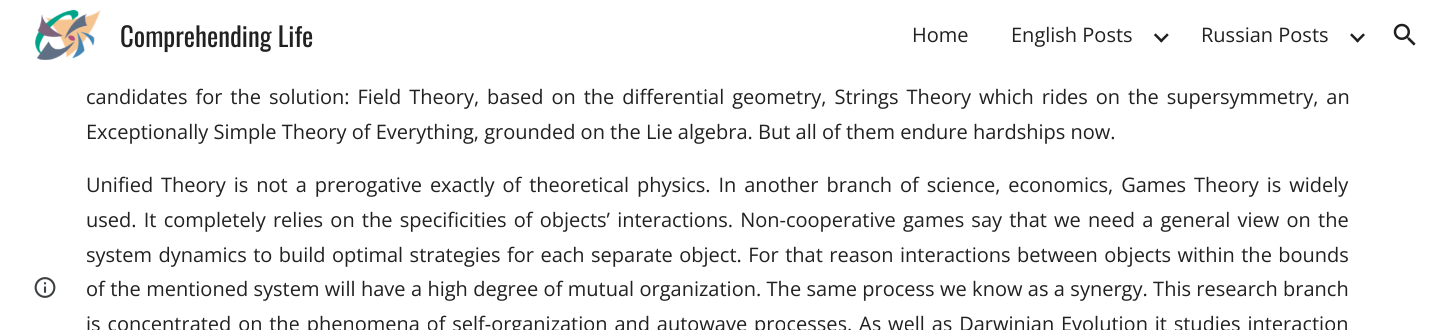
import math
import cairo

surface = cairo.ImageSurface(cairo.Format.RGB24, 1435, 330)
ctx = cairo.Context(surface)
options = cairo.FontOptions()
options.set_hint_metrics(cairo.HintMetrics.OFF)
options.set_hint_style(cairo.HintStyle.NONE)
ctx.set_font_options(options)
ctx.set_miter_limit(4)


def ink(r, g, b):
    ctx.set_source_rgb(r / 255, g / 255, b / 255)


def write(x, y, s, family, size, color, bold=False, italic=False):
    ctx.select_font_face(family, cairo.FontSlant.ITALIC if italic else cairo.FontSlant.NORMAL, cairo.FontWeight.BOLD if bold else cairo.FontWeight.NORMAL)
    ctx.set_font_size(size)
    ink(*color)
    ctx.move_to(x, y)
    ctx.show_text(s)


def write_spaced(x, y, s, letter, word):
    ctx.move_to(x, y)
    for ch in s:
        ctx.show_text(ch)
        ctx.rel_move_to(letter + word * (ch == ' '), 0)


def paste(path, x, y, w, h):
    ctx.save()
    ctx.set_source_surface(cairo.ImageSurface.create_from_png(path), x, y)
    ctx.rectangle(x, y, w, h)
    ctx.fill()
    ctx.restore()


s1 = dict(family="Oswald", size=26.75, color=(33, 33, 33))
s2 = dict(family="Open Sans", size=20, color=(33, 33, 33))

ink(255, 255, 255)
ctx.paint()
paste("pic1.png", 35, 9, 66, 51)
write(120, 47, "Comprehending Life", **s1)
write(912, 42, "Home", **s2)
write(1011, 42, "English Posts", **s2)
paste("pic2.png", 1153, 33, 16, 10)
write(1201, 42, "Russian Posts", **s2)
paste("pic3.png", 1350, 33, 15, 10)
paste("pic4.png", 1393, 23, 23, 23)
paste("pic5.png", 34, 277, 22, 21)
write_spaced(86, 104, "candidates for the solution: Field Theory, based on the differential geometry, Strings Theory which rides on the supersymmetry, an", 0, 2.75)
write(86, 139, "Exceptionally Simple Theory of Everything, grounded on the Lie algebra. But all of them endure hardships now.", **s2)
write_spaced(86, 192, "Unified Theory is not a prerogative exactly of theoretical physics. In another branch of science, economics, Games Theory is widely", 0, 2.75)
write_spaced(86, 227, "used. It completely relies on the specificities of objects’ interactions. Non-cooperative games say that we need a general view on the", 0, 2)
write_spaced(86, 262, "system dynamics to build optimal strategies for each separate object. For that reason interactions between objects within the bounds", 0, 1.25)
write_spaced(86, 296, "of the mentioned system will have a high degree of mutual organization. The same process we know as a synergy. This research branch", 0, 0.2)
write_spaced(86, 331, "is concentrated on the phenomena of self-organization and autowave processes. As well as Darwinian Evolution it studies interaction", 0, 1.6)
surface.write_to_png("screenshot.png")
